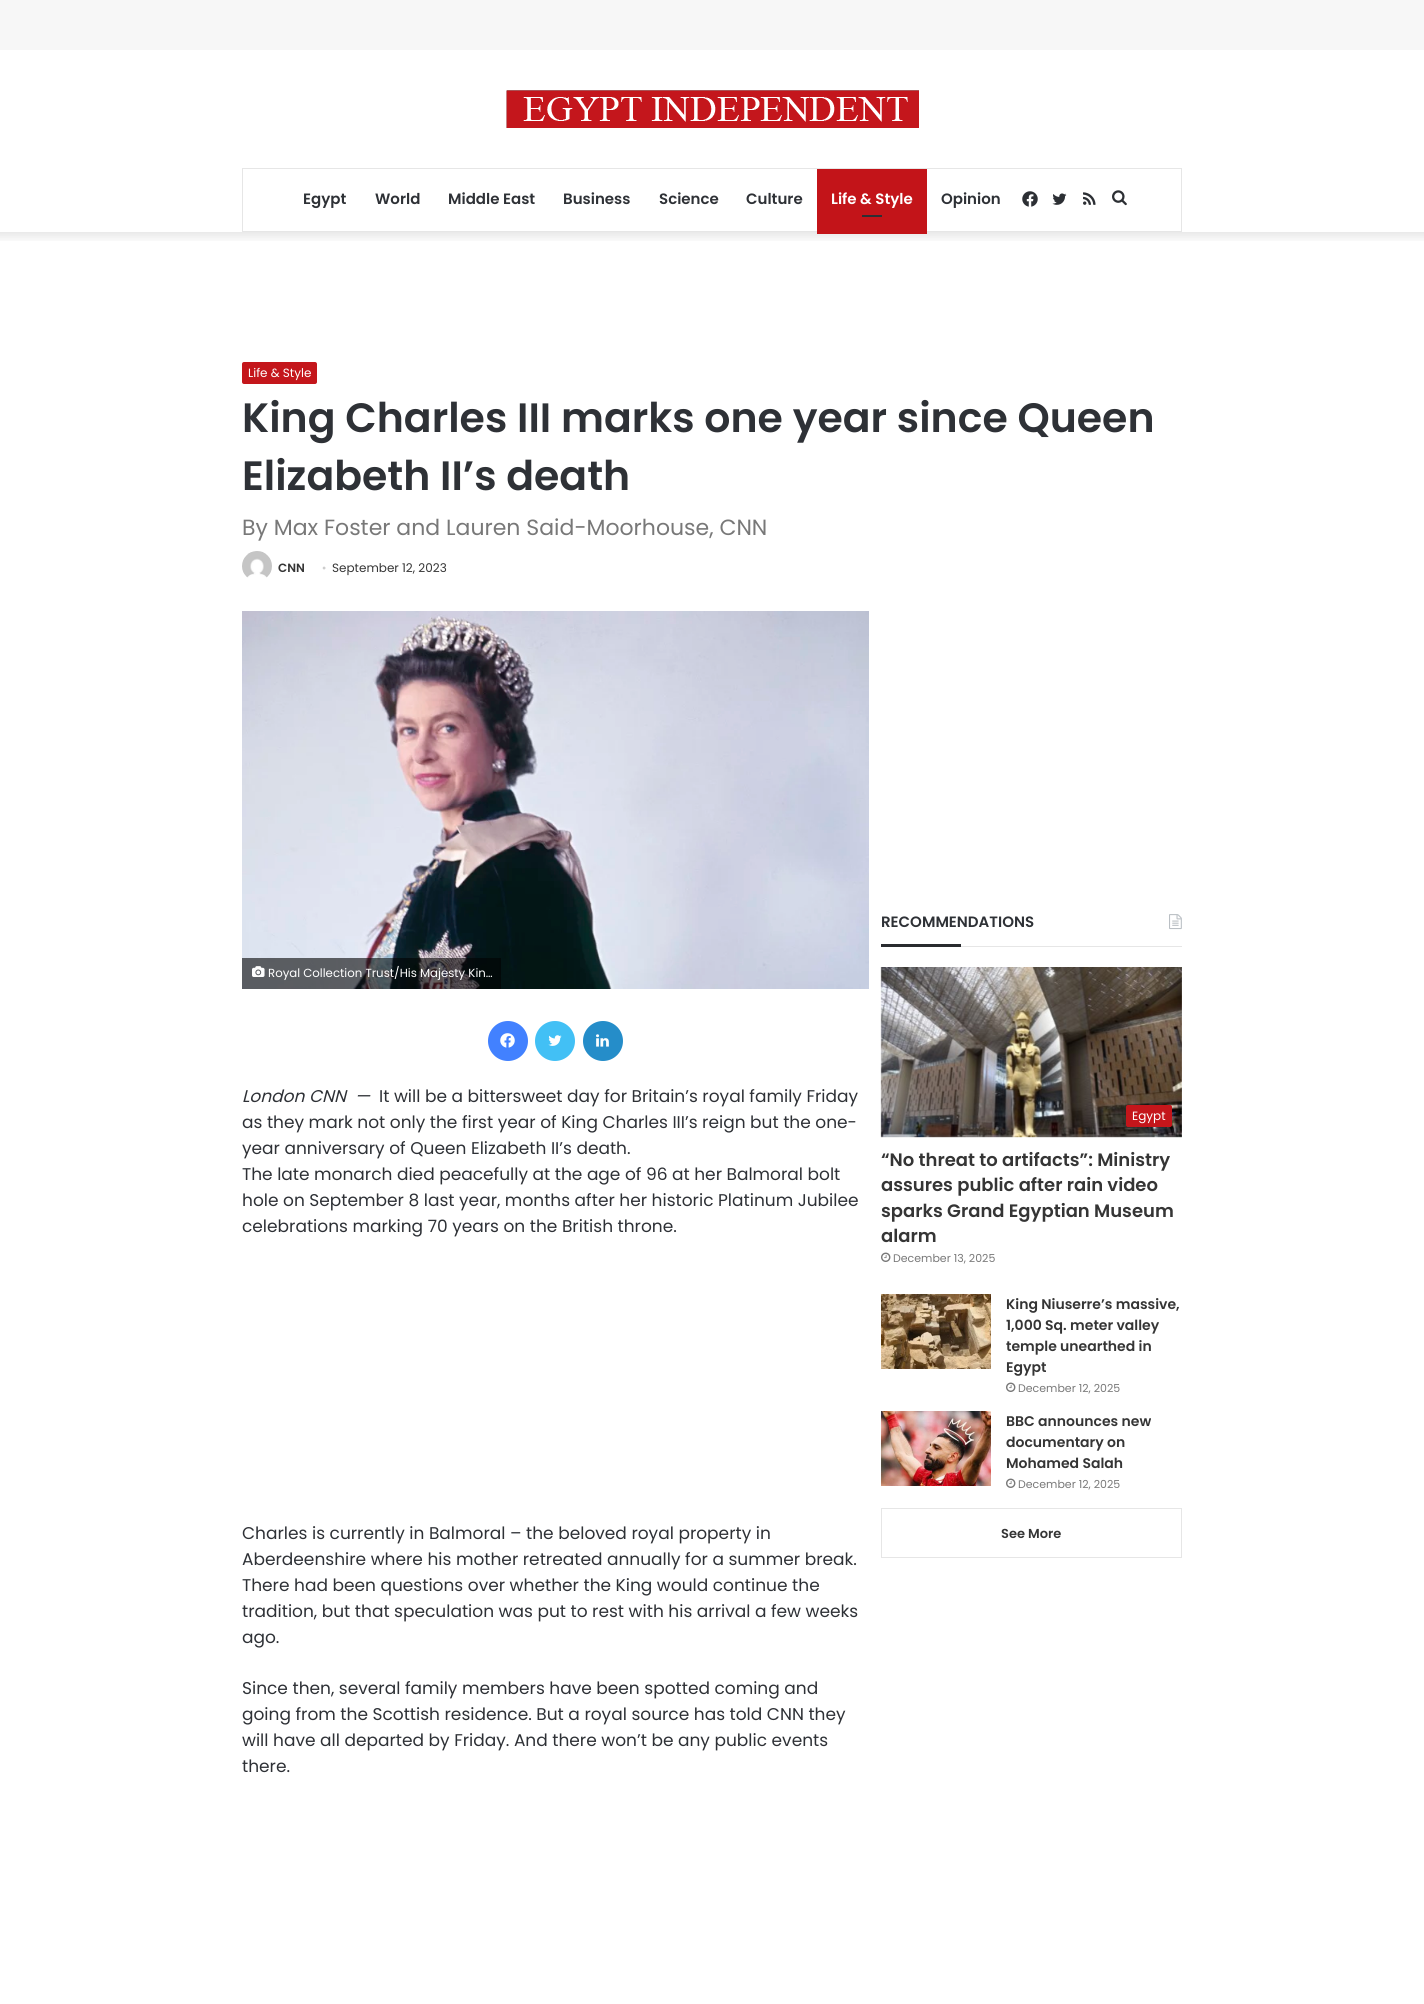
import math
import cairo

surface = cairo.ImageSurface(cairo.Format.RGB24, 1424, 2004)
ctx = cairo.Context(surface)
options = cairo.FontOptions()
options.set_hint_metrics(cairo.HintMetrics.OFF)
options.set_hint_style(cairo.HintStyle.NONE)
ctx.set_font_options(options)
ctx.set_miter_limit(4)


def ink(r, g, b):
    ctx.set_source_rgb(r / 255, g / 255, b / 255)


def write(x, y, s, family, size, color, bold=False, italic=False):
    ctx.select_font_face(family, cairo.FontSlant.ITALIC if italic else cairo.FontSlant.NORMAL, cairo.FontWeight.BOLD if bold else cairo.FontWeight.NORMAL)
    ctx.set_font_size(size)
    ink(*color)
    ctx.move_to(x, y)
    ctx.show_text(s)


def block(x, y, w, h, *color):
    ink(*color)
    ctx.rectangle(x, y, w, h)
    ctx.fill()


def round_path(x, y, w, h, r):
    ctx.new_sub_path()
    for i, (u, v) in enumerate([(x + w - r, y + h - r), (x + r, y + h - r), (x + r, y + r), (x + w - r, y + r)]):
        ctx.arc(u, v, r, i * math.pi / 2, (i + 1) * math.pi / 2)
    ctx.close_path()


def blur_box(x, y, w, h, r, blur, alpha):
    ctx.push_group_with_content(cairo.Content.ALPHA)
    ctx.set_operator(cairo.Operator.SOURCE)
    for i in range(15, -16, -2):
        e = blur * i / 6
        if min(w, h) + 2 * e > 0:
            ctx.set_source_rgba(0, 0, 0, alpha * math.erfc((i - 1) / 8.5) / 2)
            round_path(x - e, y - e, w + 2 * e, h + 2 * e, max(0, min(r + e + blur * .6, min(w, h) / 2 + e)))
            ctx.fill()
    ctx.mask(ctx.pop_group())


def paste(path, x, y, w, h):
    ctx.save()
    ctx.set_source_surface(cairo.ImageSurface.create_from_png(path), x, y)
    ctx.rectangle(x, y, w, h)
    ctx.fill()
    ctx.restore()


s1 = dict(family="Poppins SemiBold", size=15, color=(46, 49, 54))
s2 = dict(family="Poppins SemiBold", size=15, color=(255, 255, 255))
s3 = dict(family="Poppins", size=12, color=(255, 255, 255))
s4 = dict(family="Poppins SemiBold", size=41, color=(46, 49, 54))
s5 = dict(family="Poppins", size=22, color=(120, 120, 120))
s6 = dict(family="Poppins SemiBold", size=12, color=(53, 53, 53))
s7 = dict(family="Liberation Serif", size=12, color=(205, 205, 205))
s8 = dict(family="Poppins", size=12, color=(53, 53, 53))
s9 = dict(family="Poppins", size=11.75, color=(255, 255, 255))
s10 = dict(family="Poppins", size=17, color=(46, 49, 54), italic=True)
s11 = dict(family="Poppins", size=17, color=(46, 49, 54))
s12 = dict(family="Poppins SemiBold", size=18, color=(53, 53, 53))
s13 = dict(family="Poppins", size=11, color=(120, 120, 120))
s14 = dict(family="Poppins SemiBold", size=14, color=(53, 53, 53))
s15 = dict(family="Poppins SemiBold", size=13, color=(53, 53, 53))

ink(247, 247, 247)
ctx.paint()
block(0, 50, 1424, 1954, 255, 255, 255)
ctx.save()
ctx.rectangle(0, 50, 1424, 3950)
ctx.clip()
ctx.rectangle(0, 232, 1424, 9)
ctx.clip()
ink(0, 0, 0)
blur_box(-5, 45, 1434, 192, 0, 5, 0.1)
ctx.restore()
paste("pic1.png", 506, 90, 413, 38)
ctx.rectangle(242.5, 168.5, 939, 63)
ink(230, 230, 230)
ctx.set_line_width(1)
ctx.stroke()
write(303, 204, "Egypt", **s1)
write(375, 204, "World", **s1)
write(448, 204, "Middle East", **s1)
write(563, 204, "Business", **s1)
write(659, 204, "Science", **s1)
write(746, 204, "Culture", **s1)
block(817, 169, 110, 65, 195, 20, 25)
write(831, 204, "Life & Style", **s2)
block(862, 215, 20, 2, 44, 47, 52)
write(941, 204, "Opinion", **s1)
paste("pic2.png", 1022, 191, 16, 16)
paste("pic3.png", 1052, 193, 15, 12)
paste("pic4.png", 1083, 192, 13, 13)
paste("pic5.png", 1112, 190, 15, 16)
ink(196, 22, 27)
round_path(242, 362, 75, 22, 2)
ctx.fill()
write(248, 377, "Life & Style", **s3)
write(242, 432, "King Charles III marks one year since Queen", **s4)
write(242, 490, "Elizabeth II’s death", **s4)
write(242, 535, "By Max Foster and Lauren Said-Moorhouse, CNN", **s5)
paste("pic6.png", 242, 551, 30, 27)
write(278, 572, "CNN", **s6)
write(322, 572, "•", **s7)
write(332, 572, "September 12, 2023", **s8)
paste("pic7.png", 242, 611, 627, 378)
ctx.set_source_rgba(0.012, 0.012, 0.012, 0.6)
ctx.rectangle(242, 958, 259, 31)
ctx.fill()
paste("pic8.png", 252, 966, 13, 11)
write(268, 977, "Royal Collection Trust/His Majesty Kin…", **s9)
ink(66, 129, 255)
ctx.new_path()
ctx.arc(508, 1041, 20, 0, 2 * math.pi)
ctx.fill()
paste("pic9.png", 500, 1033, 15, 15)
ink(66, 192, 245)
ctx.arc(555, 1041, 20, 0, 2 * math.pi)
ctx.fill()
paste("pic10.png", 548, 1035, 14, 11)
ink(37, 141, 201)
ctx.arc(603, 1041, 20, 0, 2 * math.pi)
ctx.fill()
paste("pic11.png", 596, 1034, 13, 13)
write(242, 1102, "London CNN", **s10)
write(355, 1102, "—", **s10)
write(379, 1102, "It will be a bittersweet day for Britain’s royal family Friday", **s11)
write(242, 1128, "as they mark not only the first year of King Charles III’s reign but the one-", **s11)
write(242, 1154, "year anniversary of Queen Elizabeth II’s death.", **s11)
write(242, 1180, "The late monarch died peacefully at the age of 96 at her Balmoral bolt", **s11)
write(242, 1206, "hole on September 8 last year, months after her historic Platinum Jubilee", **s11)
write(242, 1232, "celebrations marking 70 years on the British throne.", **s11)
write(242, 1539, "Charles is currently in Balmoral – the beloved royal property in", **s11)
write(242, 1565, "Aberdeenshire where his mother retreated annually for a summer break.", **s11)
write(242, 1591, "There had been questions over whether the King would continue the", **s11)
write(242, 1617, "tradition, but that speculation was put to rest with his arrival a few weeks", **s11)
write(242, 1643, "ago.", **s11)
write(242, 1694, "Since then, several family members have been spotted coming and", **s11)
write(242, 1720, "going from the Scottish residence. But a royal source has told CNN they", **s11)
write(242, 1746, "will have all departed by Friday. And there won’t be any public events", **s11)
write(242, 1772, "there.", **s11)
block(961, 946, 221, 1, 230, 230, 230)
write(881, 927, "RECOMMENDATIONS", **s1)
paste("pic12.png", 1169, 914, 13, 16)
block(881, 944, 80, 3, 41, 43, 47)
paste("pic13.png", 880, 967, 302, 171)
ink(196, 22, 27)
round_path(1126, 1105, 46, 22, 2)
ctx.fill()
write(1132, 1120, "Egypt", **s3)
write(881, 1166, "“No threat to artifacts”: Ministry", **s12)
write(881, 1191, "assures public after rain video", **s12)
write(881, 1217, "sparks Grand Egyptian Museum", **s12)
write(881, 1242, "alarm", **s12)
paste("pic14.png", 881, 1252, 10, 10)
write(893, 1262, "December 13, 2025", **s13)
paste("pic15.png", 881, 1294, 110, 75)
write(1006, 1309, "King Niuserre’s massive,", **s14)
write(1006, 1330, "1,000 Sq. meter valley", **s14)
write(1006, 1351, "temple unearthed in", **s14)
write(1006, 1372, "Egypt", **s14)
paste("pic14.png", 1006, 1382, 10, 10)
write(1018, 1392, "December 12, 2025", **s13)
paste("pic16.png", 881, 1411, 110, 75)
write(1006, 1426, "BBC announces new", **s14)
write(1006, 1447, "documentary on", **s14)
write(1006, 1468, "Mohamed Salah", **s14)
paste("pic14.png", 1006, 1478, 10, 10)
write(1018, 1488, "December 12, 2025", **s13)
ctx.rectangle(881.5, 1508.5, 300, 49)
ink(230, 230, 230)
ctx.stroke()
write(1001, 1538, "See More", **s15)
surface.write_to_png("screenshot.png")
